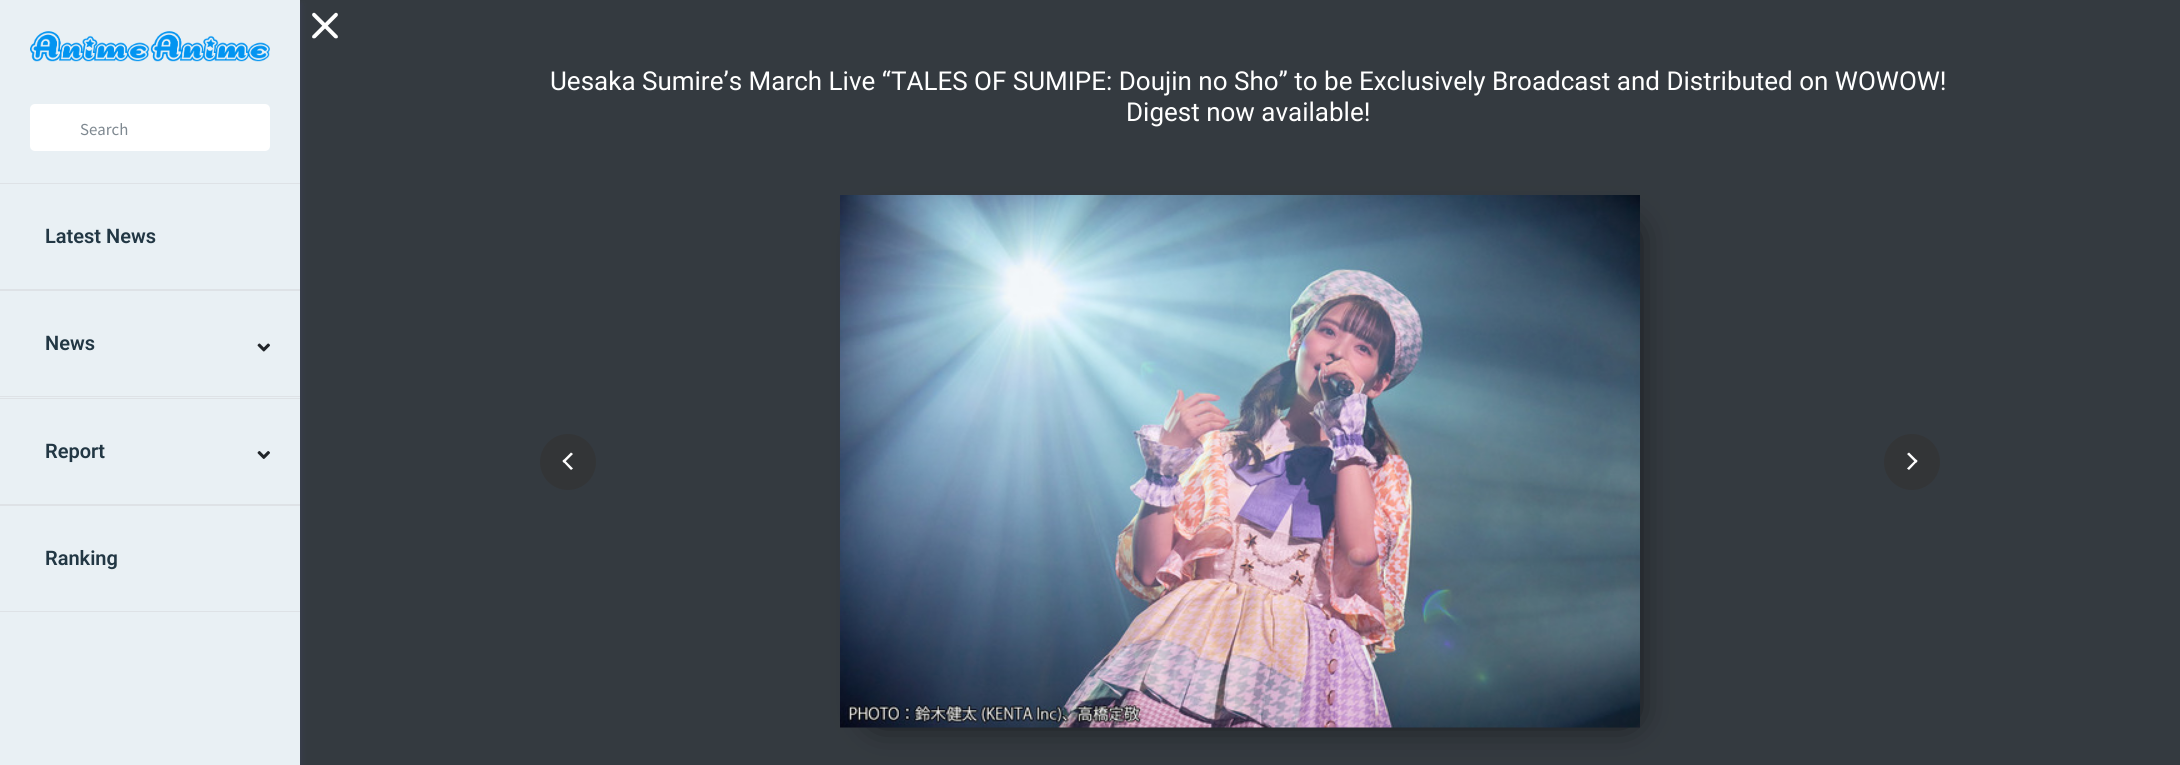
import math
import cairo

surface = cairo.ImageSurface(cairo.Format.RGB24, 2180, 765)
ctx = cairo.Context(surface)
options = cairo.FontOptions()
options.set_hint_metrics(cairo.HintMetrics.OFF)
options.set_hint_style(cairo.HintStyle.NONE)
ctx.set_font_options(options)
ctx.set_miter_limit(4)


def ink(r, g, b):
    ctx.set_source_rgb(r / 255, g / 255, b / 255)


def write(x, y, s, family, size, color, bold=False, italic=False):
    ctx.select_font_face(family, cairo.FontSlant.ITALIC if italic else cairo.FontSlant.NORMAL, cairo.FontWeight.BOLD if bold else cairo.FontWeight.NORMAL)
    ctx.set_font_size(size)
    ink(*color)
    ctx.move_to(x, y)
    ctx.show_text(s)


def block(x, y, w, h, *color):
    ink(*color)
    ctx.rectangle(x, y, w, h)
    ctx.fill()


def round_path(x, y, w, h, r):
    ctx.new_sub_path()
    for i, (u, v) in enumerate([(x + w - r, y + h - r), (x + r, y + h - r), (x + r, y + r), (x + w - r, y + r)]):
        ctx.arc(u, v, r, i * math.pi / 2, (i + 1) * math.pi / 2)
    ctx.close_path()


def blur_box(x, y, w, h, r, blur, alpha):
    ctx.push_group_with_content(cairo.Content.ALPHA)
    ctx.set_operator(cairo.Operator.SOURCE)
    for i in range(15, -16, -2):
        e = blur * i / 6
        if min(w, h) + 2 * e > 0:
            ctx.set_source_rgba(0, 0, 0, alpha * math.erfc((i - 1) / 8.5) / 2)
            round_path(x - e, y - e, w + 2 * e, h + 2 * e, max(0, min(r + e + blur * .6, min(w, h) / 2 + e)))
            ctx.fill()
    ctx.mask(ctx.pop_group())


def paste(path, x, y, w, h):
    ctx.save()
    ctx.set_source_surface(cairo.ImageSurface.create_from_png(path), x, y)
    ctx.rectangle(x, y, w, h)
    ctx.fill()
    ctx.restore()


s1 = dict(family="Roboto", size=26, color=(255, 255, 255))
s2 = dict(family="Noto Sans JP", size=15, color=(126, 136, 144))
s3 = dict(family="Roboto SemiBold", size=20, color=(34, 55, 68))

ink(52, 58, 64)
ctx.paint()
ink(255, 255, 255)
ctx.new_path()
ctx.move_to(312.5, 35.5)
ctx.line_to(334.5, 13.5)
ctx.curve_to(335.5, 12.5, 336.5, 12.5, 337.5, 13.5)
ctx.curve_to(338, 14, 338, 15, 337.5, 16)
ctx.line_to(315.5, 38)
ctx.curve_to(314.5, 38.5, 313.5, 38.5, 312.5, 38)
ctx.curve_to(312, 37.5, 312, 36, 312.5, 35.5)
ctx.close_path()
ctx.fill()
ctx.new_path()
ctx.move_to(315.5, 13.5)
ctx.line_to(337.5, 35.5)
ctx.curve_to(338, 36, 338, 37.5, 337.5, 38)
ctx.curve_to(336.5, 38.5, 335.5, 38.5, 334.5, 38)
ctx.line_to(312.5, 16)
ctx.curve_to(312, 15, 312, 14, 312.5, 13.5)
ctx.curve_to(313.5, 12.5, 314.5, 12.5, 315.5, 13.5)
ctx.close_path()
ctx.fill()
write(550, 90, "Uesaka Sumire’s March Live “TALES OF SUMIPE: Doujin no Sho” to be Exclusively Broadcast and Distributed on WOWOW!", **s1)
write(1126, 121, "Digest now available!", **s1)
ink(0, 0, 0)
blur_box(878, 233, 750, 482, 0, 19, 1)
paste("pic1.png", 840, 195, 800, 533)
ink(51, 53, 55)
ctx.arc(568, 462, 28, 0, 2 * math.pi)
ctx.fill()
ink(255, 255, 255)
ctx.new_path()
ctx.move_to(571, 470)
ctx.line_to(562.5, 461)
ctx.line_to(564, 459.5)
ctx.line_to(573, 468.5)
ctx.close_path()
ctx.fill()
ctx.new_path()
ctx.move_to(564, 463)
ctx.line_to(562.5, 461)
ctx.line_to(571, 452.5)
ctx.line_to(573, 454)
ctx.close_path()
ctx.fill()
ink(51, 53, 55)
ctx.arc(1912, 462, 28, 0, 2 * math.pi)
ctx.fill()
ink(255, 255, 255)
ctx.new_path()
ctx.move_to(1909, 452.5)
ctx.line_to(1917.5, 461)
ctx.line_to(1916, 463)
ctx.line_to(1907, 454)
ctx.close_path()
ctx.fill()
ctx.new_path()
ctx.move_to(1916, 459.5)
ctx.line_to(1917.5, 461)
ctx.line_to(1909, 470)
ctx.line_to(1907, 468.5)
ctx.close_path()
ctx.fill()
ink(117, 108, 254)
blur_box(0, 4, 300, 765, 0, 4, 0.12)
block(0, 0, 300, 765, 233, 240, 244)
paste("pic2.png", 30, 31, 240, 31)
ink(255, 255, 255)
round_path(30, 104, 240, 47, 5)
ctx.fill()
write(80, 135, "Search", **s2)
block(0, 183, 300, 1, 222, 226, 230)
block(0, 289, 300, 2, 222, 226, 230)
write(45, 243, "Latest News", **s3)
block(0, 396, 300, 1, 222, 226, 230)
write(45, 350, "News", **s3)
paste("pic3.png", 257, 343, 13, 9)
block(0, 398, 300, 1, 222, 226, 230)
block(0, 504, 300, 2, 222, 226, 230)
write(45, 458, "Report", **s3)
paste("pic4.png", 257, 451, 13, 8)
block(0, 611, 300, 1, 222, 226, 230)
write(45, 565, "Ranking", **s3)
surface.write_to_png("screenshot.png")
